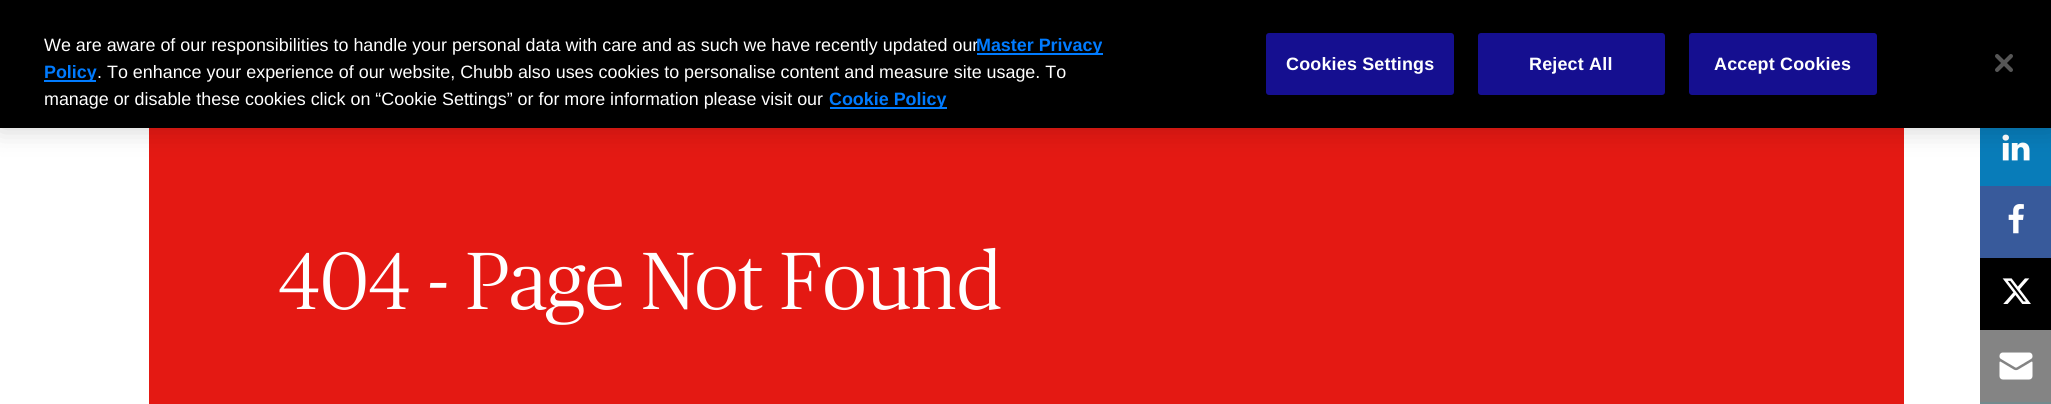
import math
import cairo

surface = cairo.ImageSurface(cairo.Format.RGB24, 2051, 404)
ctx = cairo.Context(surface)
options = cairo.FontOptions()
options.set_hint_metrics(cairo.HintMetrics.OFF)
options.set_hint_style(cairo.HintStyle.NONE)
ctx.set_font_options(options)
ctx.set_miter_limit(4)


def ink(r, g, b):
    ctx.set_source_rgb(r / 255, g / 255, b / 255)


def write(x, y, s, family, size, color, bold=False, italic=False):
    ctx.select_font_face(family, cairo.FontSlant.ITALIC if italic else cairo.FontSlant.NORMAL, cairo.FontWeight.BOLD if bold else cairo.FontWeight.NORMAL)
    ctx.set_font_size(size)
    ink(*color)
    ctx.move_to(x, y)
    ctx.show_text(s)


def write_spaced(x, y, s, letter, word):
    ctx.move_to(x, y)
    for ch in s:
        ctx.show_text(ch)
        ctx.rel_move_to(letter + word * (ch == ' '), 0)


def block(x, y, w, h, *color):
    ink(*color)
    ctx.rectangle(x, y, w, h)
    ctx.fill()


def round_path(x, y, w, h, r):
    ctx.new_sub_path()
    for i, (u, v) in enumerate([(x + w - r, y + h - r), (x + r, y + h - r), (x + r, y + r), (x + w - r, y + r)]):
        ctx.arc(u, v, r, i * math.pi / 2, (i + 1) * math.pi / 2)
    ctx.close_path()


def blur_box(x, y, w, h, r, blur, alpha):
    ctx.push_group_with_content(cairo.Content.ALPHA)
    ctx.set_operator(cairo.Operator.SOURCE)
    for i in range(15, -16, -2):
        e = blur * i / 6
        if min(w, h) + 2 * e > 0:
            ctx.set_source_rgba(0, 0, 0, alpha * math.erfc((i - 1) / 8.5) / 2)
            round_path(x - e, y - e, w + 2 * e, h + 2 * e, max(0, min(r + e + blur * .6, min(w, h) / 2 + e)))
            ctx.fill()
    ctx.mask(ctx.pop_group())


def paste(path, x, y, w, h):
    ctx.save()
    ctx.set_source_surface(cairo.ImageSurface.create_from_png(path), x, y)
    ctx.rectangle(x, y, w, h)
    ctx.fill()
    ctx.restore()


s1 = dict(family="Liberation Sans", size=17.9, color=(255, 255, 255))
s2 = dict(family="Liberation Sans", size=17.9, color=(0, 123, 255), bold=True)
s3 = dict(family="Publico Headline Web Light", size=81, color=(255, 255, 255))

ink(255, 255, 255)
ctx.paint()
block(149, 128, 1755, 276, 228, 25, 19)
block(1980, 128, 71, 58, 8, 124, 185)
paste("pic2.png", 2002, 134, 28, 27)
ink(0, 0, 0)
blur_box(0, 0, 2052, 128, 0, 13.5, 0.2)
block(0, 0, 2051, 128, 0, 0, 0)
write(44, 51, "We are aware of our responsibilities to handle your personal data with care and as such we have recently updated our", **s1)
block(977, 53, 126, 2, 0, 123, 255)
write(976, 51, "Master Privacy", **s2)
block(44, 80, 52, 2, 0, 123, 255)
write(44, 78, "Policy", **s2)
write(97, 78, ". To enhance your experience of our website, Chubb also uses cookies to personalise content and measure site usage. To", **s1)
write(44, 105, "manage or disable these cookies click on “Cookie Settings” or for more information please visit our", **s1)
block(830, 107, 117, 2, 0, 123, 255)
write(829, 105, "Cookie Policy", **s2)
ink(21, 15, 144)
round_path(1267, 34, 186, 60, 2)
ctx.fill_preserve()
ctx.stroke()
ink(255, 255, 255)
write_spaced(1286, 70, "Cookies Settings", 0.2, 0)
ink(21, 15, 144)
round_path(1479, 34, 185, 60, 2)
ctx.fill_preserve()
ctx.stroke()
ink(255, 255, 255)
write_spaced(1529, 70, "Reject All", 0.2, 0)
ink(21, 15, 144)
round_path(1690, 34, 186, 60, 2)
ctx.fill_preserve()
ctx.stroke()
ink(255, 255, 255)
write_spaced(1714, 70, "Accept Cookies", 0.2, 0)
paste("pic1.png", 1995, 54, 18, 18)
write(278, 309, "404 - Page Not Found", **s3)
block(1980, 186, 71, 72, 56, 90, 155)
paste("pic3.png", 2008, 204, 16, 30)
block(1980, 258, 71, 72, 0, 0, 0)
paste("pic4.png", 2002, 278, 29, 26)
block(1980, 330, 71, 72, 132, 132, 132)
paste("pic5.png", 1999, 352, 34, 28)
block(1980, 402, 71, 2, 115, 138, 141)
surface.write_to_png("screenshot.png")
